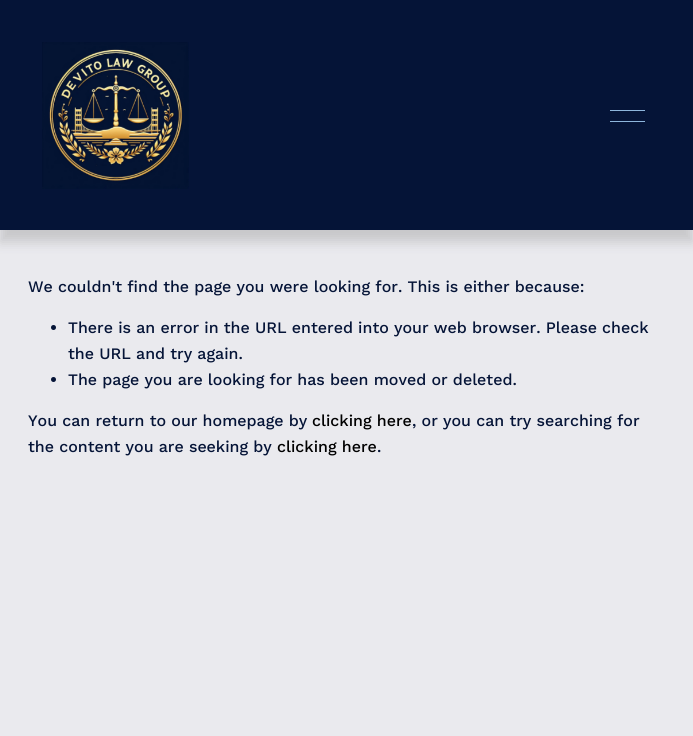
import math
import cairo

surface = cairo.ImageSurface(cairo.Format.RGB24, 693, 736)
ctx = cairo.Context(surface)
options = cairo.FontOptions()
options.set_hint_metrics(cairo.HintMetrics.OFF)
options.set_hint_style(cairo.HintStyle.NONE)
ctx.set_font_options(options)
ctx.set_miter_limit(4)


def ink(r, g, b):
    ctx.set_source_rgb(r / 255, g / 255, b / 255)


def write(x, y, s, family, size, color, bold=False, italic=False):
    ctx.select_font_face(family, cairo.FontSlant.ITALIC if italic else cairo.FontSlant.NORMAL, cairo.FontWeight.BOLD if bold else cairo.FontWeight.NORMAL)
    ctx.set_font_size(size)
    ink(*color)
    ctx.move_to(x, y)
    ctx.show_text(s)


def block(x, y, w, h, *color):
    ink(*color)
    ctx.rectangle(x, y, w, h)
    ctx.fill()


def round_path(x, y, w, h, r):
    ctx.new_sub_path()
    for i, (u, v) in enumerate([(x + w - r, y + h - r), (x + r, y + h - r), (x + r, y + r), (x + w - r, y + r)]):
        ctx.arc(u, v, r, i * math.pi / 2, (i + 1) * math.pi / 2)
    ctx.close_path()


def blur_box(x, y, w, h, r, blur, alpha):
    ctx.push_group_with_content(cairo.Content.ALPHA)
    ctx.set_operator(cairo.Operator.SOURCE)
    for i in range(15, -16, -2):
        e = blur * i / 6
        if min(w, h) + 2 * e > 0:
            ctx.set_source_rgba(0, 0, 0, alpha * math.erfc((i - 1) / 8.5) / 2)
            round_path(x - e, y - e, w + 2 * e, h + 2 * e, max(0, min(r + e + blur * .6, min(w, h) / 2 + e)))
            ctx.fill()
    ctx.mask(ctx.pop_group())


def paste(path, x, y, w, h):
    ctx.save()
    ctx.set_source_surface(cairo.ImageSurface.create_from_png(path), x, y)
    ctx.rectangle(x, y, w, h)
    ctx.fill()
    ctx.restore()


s1 = dict(family="Work Sans Medium", size=16, color=(5, 20, 55))
s2 = dict(family="Work Sans Medium", size=16, color=(0, 0, 0))

ink(234, 234, 238)
ctx.paint()
block(0, 0, 693, 230, 5, 20, 55)
ctx.save()
ctx.rectangle(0, 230, 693, 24)
ctx.clip()
ink(199, 199, 202)
blur_box(0, 12, 693, 230, 0, 6, 1)
ctx.restore()
paste("pic1.png", 42, 42, 147, 147)
block(610, 110, 35, 1, 142, 182, 220)
block(610, 121, 35, 1, 142, 182, 220)
write(28, 292, "We couldn't find the page you were looking for. This is either because:", **s1)
ctx.new_path()
ctx.arc(53.5, 327.5, 2.5, 0, 2 * math.pi)
ctx.fill()
write(68, 333, "There is an error in the URL entered into your web browser. Please check", **s1)
write(68, 359, "the URL and try again.", **s1)
ctx.new_path()
ctx.arc(53.5, 379.5, 2.5, 0, 2 * math.pi)
ctx.fill()
write(68, 385, "The page you are looking for has been moved or deleted.", **s1)
write(28, 426, "You can return to our homepage by", **s1)
write(312, 426, "clicking here", **s2)
write(412, 426, ", or you can try searching for", **s1)
write(28, 452, "the content you are seeking by", **s1)
write(277, 452, "clicking here", **s2)
write(377, 452, ".", **s1)
surface.write_to_png("screenshot.png")
